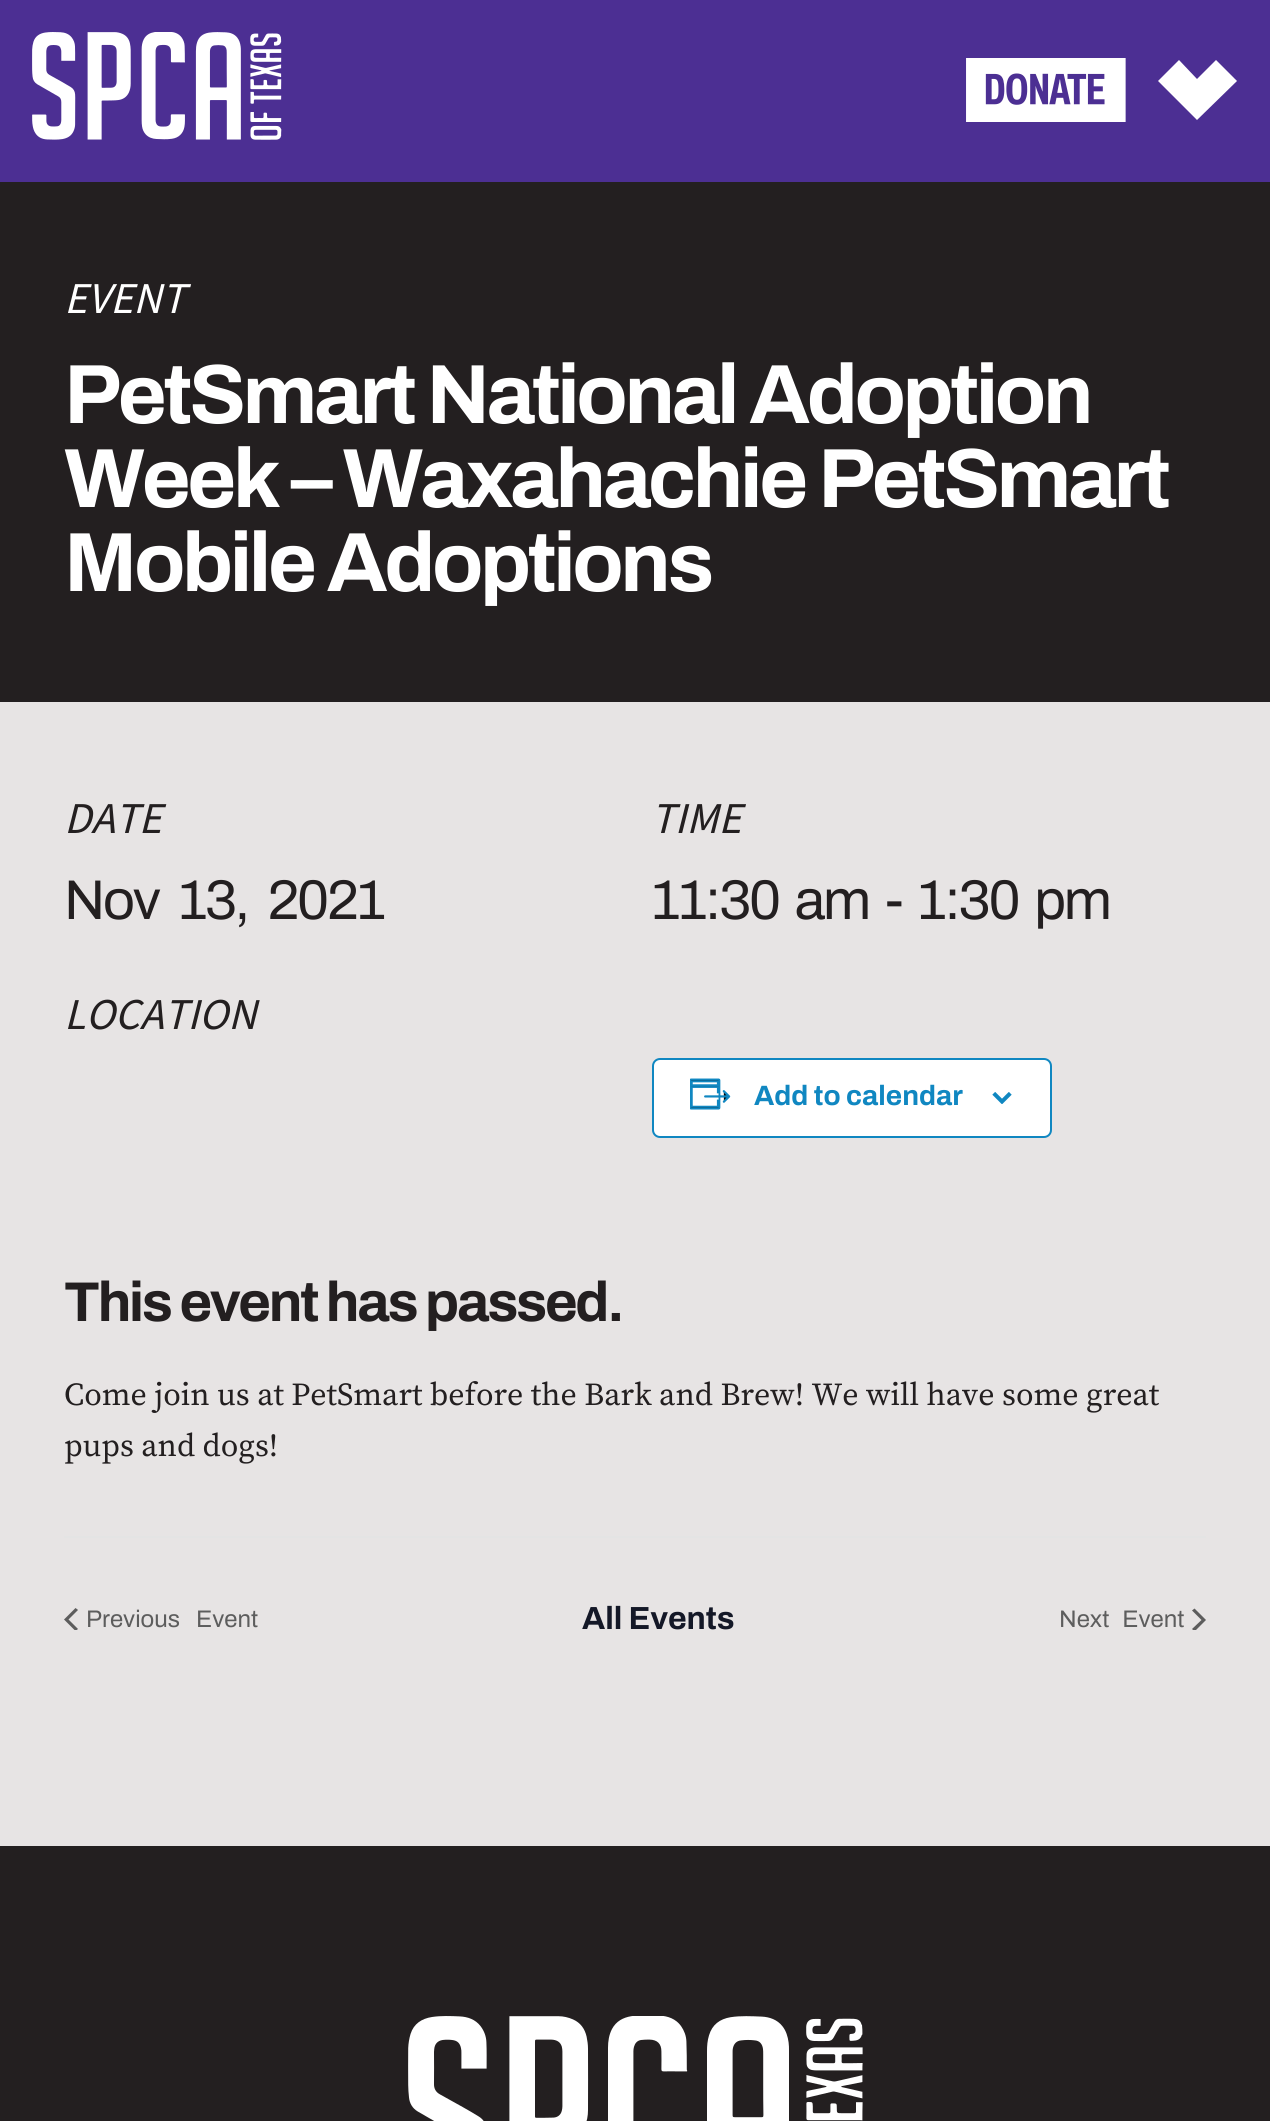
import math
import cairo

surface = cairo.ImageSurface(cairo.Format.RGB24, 1270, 2121)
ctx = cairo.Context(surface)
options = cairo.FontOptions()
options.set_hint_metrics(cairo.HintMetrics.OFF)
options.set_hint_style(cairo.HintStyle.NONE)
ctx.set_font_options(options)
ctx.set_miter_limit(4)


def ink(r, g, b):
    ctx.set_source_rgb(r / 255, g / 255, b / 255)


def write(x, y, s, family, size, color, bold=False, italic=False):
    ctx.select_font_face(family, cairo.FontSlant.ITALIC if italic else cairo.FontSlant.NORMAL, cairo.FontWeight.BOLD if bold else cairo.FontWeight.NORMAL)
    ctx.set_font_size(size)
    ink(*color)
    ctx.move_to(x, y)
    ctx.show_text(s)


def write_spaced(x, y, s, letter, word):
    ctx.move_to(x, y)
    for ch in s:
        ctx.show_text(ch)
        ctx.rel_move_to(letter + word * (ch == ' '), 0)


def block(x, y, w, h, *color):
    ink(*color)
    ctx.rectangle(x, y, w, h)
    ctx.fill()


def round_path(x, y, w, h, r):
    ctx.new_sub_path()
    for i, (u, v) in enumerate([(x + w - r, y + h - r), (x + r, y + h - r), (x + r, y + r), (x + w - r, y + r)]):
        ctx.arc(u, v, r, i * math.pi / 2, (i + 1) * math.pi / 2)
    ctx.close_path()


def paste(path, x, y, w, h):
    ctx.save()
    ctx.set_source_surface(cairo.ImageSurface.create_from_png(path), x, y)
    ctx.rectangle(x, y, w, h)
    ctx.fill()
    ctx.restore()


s1 = dict(family="Source Sans Pro", size=44, color=(255, 255, 255), italic=True)
s2 = dict(family="Source Sans Pro", size=44, color=(35, 31, 32), italic=True)
s3 = dict(family="Archivo", size=28, color=(16, 135, 193), bold=True)
s4 = dict(family="Source Serif Pro", size=32, color=(35, 31, 32))
s5 = dict(family="Archivo", size=32, color=(20, 24, 39), bold=True)

ink(231, 228, 228)
ctx.paint()
block(0, 0, 1270, 182, 76, 47, 147)
paste("pic1.png", 32, 32, 250, 108)
paste("pic2.png", 966, 58, 160, 64)
ink(255, 255, 255)
ctx.new_path()
ctx.move_to(1197, 120)
ctx.line_to(1237, 81)
ctx.line_to(1216, 60)
ctx.line_to(1197, 79)
ctx.line_to(1179, 60)
ctx.line_to(1158, 81)
ctx.close_path()
ctx.fill()
block(0, 182, 1270, 520, 35, 31, 32)
write(64, 313, "EVENT", **s1)
ctx.select_font_face("Archivo", cairo.FontSlant.NORMAL, cairo.FontWeight.BOLD)
ctx.set_font_size(84)
write_spaced(64, 423, "PetSmart National Adoption", -3.35, 0)
write_spaced(64, 507, "Week – Waxahachie PetSmart", -3.35, 0)
write_spaced(64, 591, "Mobile Adoptions", -3.35, 0)
write(64, 833, "DATE", **s2)
ctx.select_font_face("Archivo")
ctx.set_font_size(56)
write_spaced(64, 919, "Nov 13, 2021", -2.25, 10)
write(651, 833, "TIME", **s2)
ctx.select_font_face("Archivo")
ctx.set_font_size(56)
write_spaced(651, 919, "11:30 am - 1:30 pm", -2.25, 6.5)
write(64, 1029, "LOCATION", **s2)
ink(255, 255, 255)
round_path(653, 1059, 398, 78, 7)
ctx.fill_preserve()
ink(16, 135, 193)
ctx.stroke()
paste("pic3.png", 690, 1078, 41, 32)
write(754, 1105, "Add to calendar", **s3)
paste("pic4.png", 992, 1092, 20, 12)
ctx.set_font_size(56)
ink(35, 31, 32)
write_spaced(64, 1321, "This event has passed.", -2.25, 0)
write(64, 1405, "Come join us at PetSmart before the Bark and Brew! We will have some great", **s4)
write(64, 1456, "pups and dogs!", **s4)
block(64, 1536, 1142, 2, 228, 228, 228)
ctx.save()
ctx.rectangle(64, 1608, 14, 22)
ctx.clip()
ink(93, 93, 93)
ctx.new_path()
ctx.move_to(78, 1629)
ctx.line_to(75.5, 1631)
ctx.line_to(64, 1619.5)
ctx.line_to(75.5, 1608)
ctx.line_to(78, 1610)
ctx.line_to(68.5, 1619.5)
ctx.close_path()
ctx.fill()
ctx.restore()
ctx.select_font_face("Archivo")
ctx.set_font_size(24)
ink(93, 93, 93)
write_spaced(86, 1627, "Previous Event", 0, 11)
write(582, 1629, "All Events", **s5)
ctx.select_font_face("Archivo")
ctx.set_font_size(24)
ink(93, 93, 93)
write_spaced(1059, 1627, "Next Event", 0, 8)
ctx.save()
ctx.rectangle(1192, 1608, 14, 22)
ctx.clip()
ctx.new_path()
ctx.move_to(1192, 1610.5)
ctx.line_to(1194.5, 1608.5)
ctx.line_to(1206, 1620)
ctx.line_to(1194.5, 1631.5)
ctx.line_to(1192, 1629)
ctx.line_to(1201.5, 1620)
ctx.close_path()
ctx.fill()
ctx.restore()
block(0, 1846, 1270, 275, 35, 31, 32)
paste("pic5.png", 408, 2016, 455, 105)
surface.write_to_png("screenshot.png")
